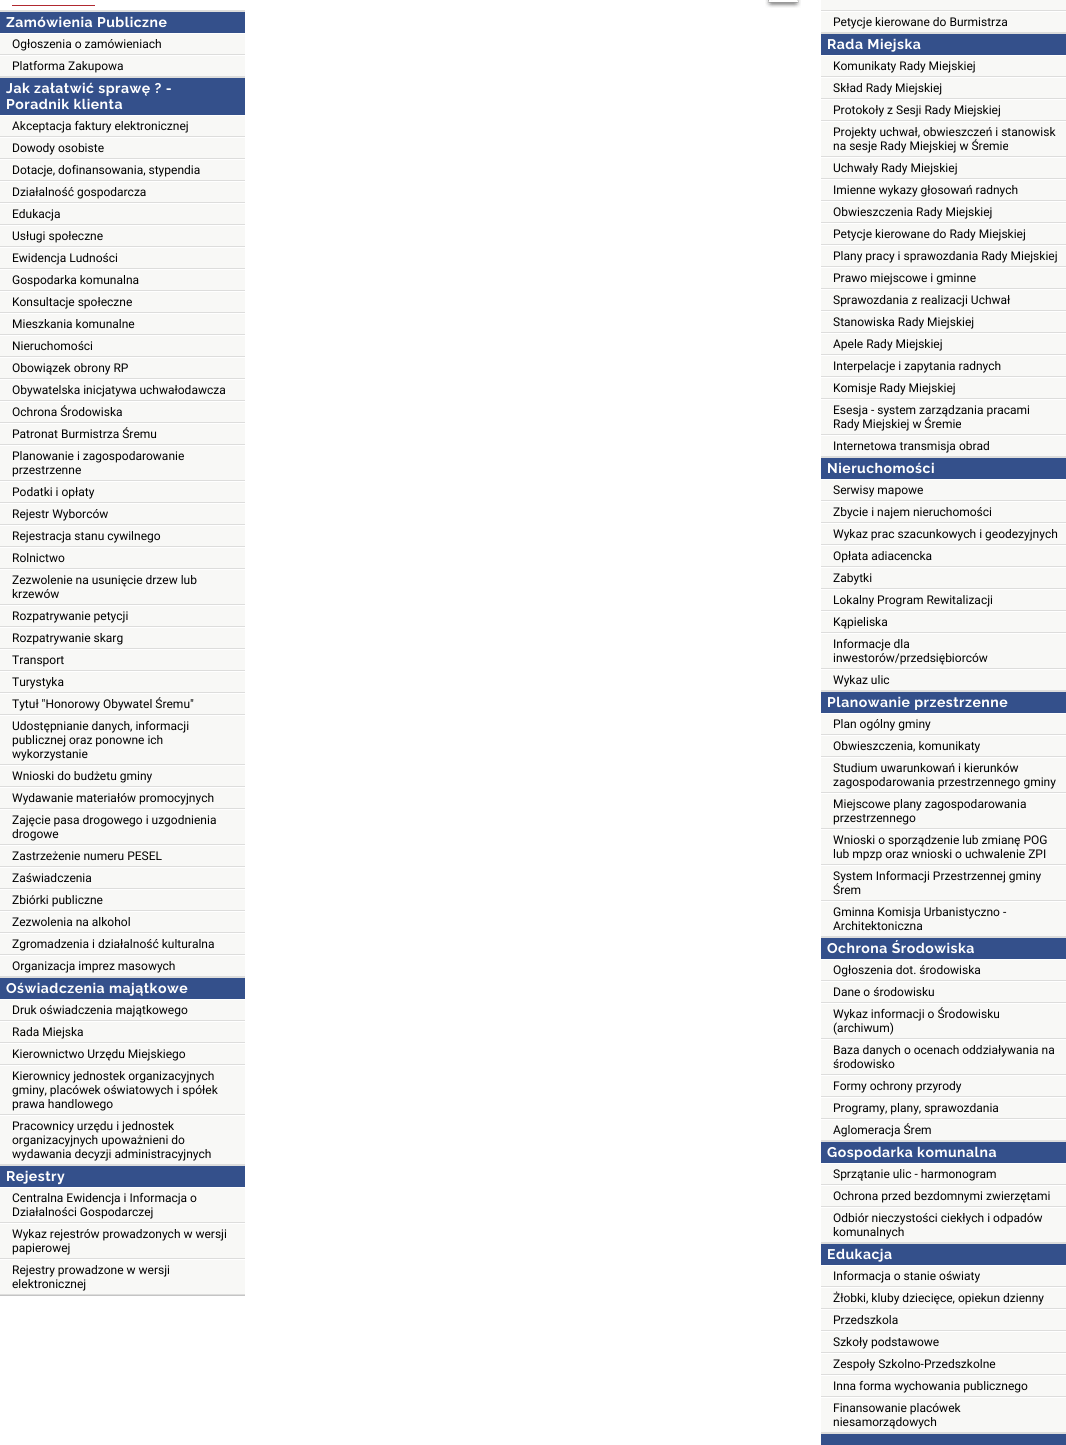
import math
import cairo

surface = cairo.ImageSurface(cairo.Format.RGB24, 1066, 1445)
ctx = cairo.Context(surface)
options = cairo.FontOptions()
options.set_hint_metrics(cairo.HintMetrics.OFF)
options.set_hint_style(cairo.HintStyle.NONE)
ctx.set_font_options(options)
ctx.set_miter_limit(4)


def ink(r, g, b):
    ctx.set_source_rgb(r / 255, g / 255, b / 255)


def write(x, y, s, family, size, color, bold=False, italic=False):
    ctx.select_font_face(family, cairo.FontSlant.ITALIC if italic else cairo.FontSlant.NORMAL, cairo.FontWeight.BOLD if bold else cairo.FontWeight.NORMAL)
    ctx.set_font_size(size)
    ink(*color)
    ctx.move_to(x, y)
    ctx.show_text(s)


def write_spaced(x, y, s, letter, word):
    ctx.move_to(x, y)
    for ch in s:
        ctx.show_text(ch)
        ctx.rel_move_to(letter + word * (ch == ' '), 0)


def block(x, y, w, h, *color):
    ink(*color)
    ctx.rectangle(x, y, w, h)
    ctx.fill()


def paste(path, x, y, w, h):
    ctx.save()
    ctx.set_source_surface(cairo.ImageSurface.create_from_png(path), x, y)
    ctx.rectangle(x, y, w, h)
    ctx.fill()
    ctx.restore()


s1 = dict(family="Roboto", size=12, color=(0, 0, 0))

ink(255, 255, 255)
ctx.paint()
paste("pic1.png", 765, 0, 36, 8)
block(0, 34, 245, 1260, 248, 248, 246)
block(0, 1295, 245, 1, 196, 196, 196)
block(0, 10, 245, 2, 221, 221, 220)
block(12, 5, 83, 1, 177, 41, 48)
block(0, 12, 245, 21, 52, 80, 139)
ctx.select_font_face("Raleway", cairo.FontSlant.NORMAL, cairo.FontWeight.BOLD)
ctx.set_font_size(14)
ink(255, 255, 255)
write_spaced(6, 27, "Zamówienia Publiczne", 0.5, 0)
block(0, 54, 245, 1, 221, 221, 220)
write(12, 48, "Ogłoszenia o zamówieniach", **s1)
block(0, 55, 245, 1, 255, 255, 255)
block(0, 76, 245, 2, 221, 221, 220)
write(12, 70, "Platforma Zakupowa", **s1)
block(0, 78, 245, 37, 52, 80, 139)
ctx.select_font_face("Raleway", cairo.FontSlant.NORMAL, cairo.FontWeight.BOLD)
ctx.set_font_size(14)
ink(255, 255, 255)
write_spaced(6, 93, "Jak załatwić sprawę ? -", 0.5, 0)
write_spaced(6, 109, "Poradnik klienta", 0.5, 0)
block(0, 115, 245, 1, 255, 255, 255)
block(0, 136, 245, 1, 221, 221, 220)
write(12, 130, "Akceptacja faktury elektronicznej", **s1)
block(0, 137, 245, 1, 255, 255, 255)
block(0, 158, 245, 1, 221, 221, 220)
write(12, 152, "Dowody osobiste", **s1)
block(0, 159, 245, 1, 255, 255, 255)
block(0, 180, 245, 1, 221, 221, 220)
write(12, 174, "Dotacje, dofinansowania, stypendia", **s1)
block(0, 181, 245, 1, 255, 255, 255)
block(0, 202, 245, 1, 221, 221, 220)
write(12, 196, "Działalność gospodarcza", **s1)
block(0, 203, 245, 1, 255, 255, 255)
block(0, 224, 245, 1, 221, 221, 220)
write(12, 218, "Edukacja", **s1)
block(0, 225, 245, 1, 255, 255, 255)
block(0, 246, 245, 1, 221, 221, 220)
write(12, 240, "Usługi społeczne", **s1)
block(0, 247, 245, 1, 255, 255, 255)
block(0, 268, 245, 1, 221, 221, 220)
write(12, 262, "Ewidencja Ludności", **s1)
block(0, 269, 245, 1, 255, 255, 255)
block(0, 290, 245, 1, 221, 221, 220)
write(12, 284, "Gospodarka komunalna", **s1)
block(0, 291, 245, 1, 255, 255, 255)
block(0, 312, 245, 1, 221, 221, 220)
write(12, 306, "Konsultacje społeczne", **s1)
block(0, 313, 245, 1, 255, 255, 255)
block(0, 334, 245, 1, 221, 221, 220)
write(12, 328, "Mieszkania komunalne", **s1)
block(0, 335, 245, 1, 255, 255, 255)
block(0, 356, 245, 1, 221, 221, 220)
write(12, 350, "Nieruchomości", **s1)
block(0, 357, 245, 1, 255, 255, 255)
block(0, 378, 245, 1, 221, 221, 220)
write(12, 372, "Obowiązek obrony RP", **s1)
block(0, 379, 245, 1, 255, 255, 255)
block(0, 400, 245, 1, 221, 221, 220)
write(12, 394, "Obywatelska inicjatywa uchwałodawcza", **s1)
block(0, 401, 245, 1, 255, 255, 255)
block(0, 422, 245, 1, 221, 221, 220)
write(12, 416, "Ochrona Środowiska", **s1)
block(0, 423, 245, 1, 255, 255, 255)
block(0, 444, 245, 1, 221, 221, 220)
write(12, 438, "Patronat Burmistrza Śremu", **s1)
block(0, 445, 245, 1, 255, 255, 255)
block(0, 480, 245, 1, 221, 221, 220)
write(12, 460, "Planowanie i zagospodarowanie", **s1)
write(12, 474, "przestrzenne", **s1)
block(0, 481, 245, 1, 255, 255, 255)
block(0, 502, 245, 1, 221, 221, 220)
write(12, 496, "Podatki i opłaty", **s1)
block(0, 503, 245, 1, 255, 255, 255)
block(0, 524, 245, 1, 221, 221, 220)
write(12, 518, "Rejestr Wyborców", **s1)
block(0, 525, 245, 1, 255, 255, 255)
block(0, 546, 245, 1, 221, 221, 220)
write(12, 540, "Rejestracja stanu cywilnego", **s1)
block(0, 547, 245, 1, 255, 255, 255)
block(0, 568, 245, 1, 221, 221, 220)
write(12, 562, "Rolnictwo", **s1)
block(0, 569, 245, 1, 255, 255, 255)
block(0, 604, 245, 1, 221, 221, 220)
write(12, 584, "Zezwolenie na usunięcie drzew lub", **s1)
write(12, 598, "krzewów", **s1)
block(0, 605, 245, 1, 255, 255, 255)
block(0, 626, 245, 1, 221, 221, 220)
write(12, 620, "Rozpatrywanie petycji", **s1)
block(0, 627, 245, 1, 255, 255, 255)
block(0, 648, 245, 1, 221, 221, 220)
write(12, 642, "Rozpatrywanie skarg", **s1)
block(0, 649, 245, 1, 255, 255, 255)
block(0, 670, 245, 1, 221, 221, 220)
write(12, 664, "Transport", **s1)
block(0, 671, 245, 1, 255, 255, 255)
block(0, 692, 245, 1, 221, 221, 220)
write(12, 686, "Turystyka", **s1)
block(0, 693, 245, 1, 255, 255, 255)
block(0, 714, 245, 1, 221, 221, 220)
write(12, 708, "Tytuł \"Honorowy Obywatel Śremu\"", **s1)
block(0, 715, 245, 1, 255, 255, 255)
block(0, 764, 245, 1, 221, 221, 220)
write(12, 730, "Udostępnianie danych, informacji", **s1)
write(12, 744, "publicznej oraz ponowne ich", **s1)
write(12, 758, "wykorzystanie", **s1)
block(0, 765, 245, 1, 255, 255, 255)
block(0, 786, 245, 1, 221, 221, 220)
write(12, 780, "Wnioski do budżetu gminy", **s1)
block(0, 787, 245, 1, 255, 255, 255)
block(0, 808, 245, 1, 221, 221, 220)
write(12, 802, "Wydawanie materiałów promocyjnych", **s1)
block(0, 809, 245, 1, 255, 255, 255)
block(0, 844, 245, 1, 221, 221, 220)
write(12, 824, "Zajęcie pasa drogowego i uzgodnienia", **s1)
write(12, 838, "drogowe", **s1)
block(0, 845, 245, 1, 255, 255, 255)
block(0, 866, 245, 1, 221, 221, 220)
write(12, 860, "Zastrzeżenie numeru PESEL", **s1)
block(0, 867, 245, 1, 255, 255, 255)
block(0, 888, 245, 1, 221, 221, 220)
write(12, 882, "Zaświadczenia", **s1)
block(0, 889, 245, 1, 255, 255, 255)
block(0, 910, 245, 1, 221, 221, 220)
write(12, 904, "Zbiórki publiczne", **s1)
block(0, 911, 245, 1, 255, 255, 255)
block(0, 932, 245, 1, 221, 221, 220)
write(12, 926, "Zezwolenia na alkohol", **s1)
block(0, 933, 245, 1, 255, 255, 255)
block(0, 954, 245, 1, 221, 221, 220)
write(12, 948, "Zgromadzenia i działalność kulturalna", **s1)
block(0, 955, 245, 1, 255, 255, 255)
block(0, 976, 245, 2, 221, 221, 220)
write(12, 970, "Organizacja imprez masowych", **s1)
block(0, 978, 245, 21, 52, 80, 139)
ctx.select_font_face("Raleway", cairo.FontSlant.NORMAL, cairo.FontWeight.BOLD)
ctx.set_font_size(14)
ink(255, 255, 255)
write_spaced(6, 993, "Oświadczenia majątkowe", 0.5, 0)
block(0, 999, 245, 1, 255, 255, 255)
block(0, 1020, 245, 1, 221, 221, 220)
write(12, 1014, "Druk oświadczenia majątkowego", **s1)
block(0, 1021, 245, 1, 255, 255, 255)
block(0, 1042, 245, 1, 221, 221, 220)
write(12, 1036, "Rada Miejska", **s1)
block(0, 1043, 245, 1, 255, 255, 255)
block(0, 1064, 245, 1, 221, 221, 220)
write(12, 1058, "Kierownictwo Urzędu Miejskiego", **s1)
block(0, 1065, 245, 1, 255, 255, 255)
block(0, 1114, 245, 1, 221, 221, 220)
write(12, 1080, "Kierownicy jednostek organizacyjnych", **s1)
write(12, 1094, "gminy, placówek oświatowych i spółek", **s1)
write(12, 1108, "prawa handlowego", **s1)
block(0, 1115, 245, 1, 255, 255, 255)
block(0, 1164, 245, 2, 221, 221, 220)
write(12, 1130, "Pracownicy urzędu i jednostek", **s1)
write(12, 1144, "organizacyjnych upoważnieni do", **s1)
write(12, 1158, "wydawania decyzji administracyjnych", **s1)
block(0, 1166, 245, 21, 52, 80, 139)
ctx.select_font_face("Raleway", cairo.FontSlant.NORMAL, cairo.FontWeight.BOLD)
ctx.set_font_size(14)
ink(255, 255, 255)
write_spaced(6, 1181, "Rejestry", 0.5, 0)
block(0, 1187, 245, 1, 255, 255, 255)
block(0, 1222, 245, 1, 221, 221, 220)
write(12, 1202, "Centralna Ewidencja i Informacja o", **s1)
write(12, 1216, "Działalności Gospodarczej", **s1)
block(0, 1223, 245, 1, 255, 255, 255)
block(0, 1258, 245, 1, 221, 221, 220)
write(12, 1238, "Wykaz rejestrów prowadzonych w wersji", **s1)
write(12, 1252, "papierowej", **s1)
block(0, 1259, 245, 1, 255, 255, 255)
block(0, 1294, 245, 1, 221, 221, 220)
write(12, 1274, "Rejestry prowadzone w wersji", **s1)
write(12, 1288, "elektronicznej", **s1)
block(821, 0, 245, 1432, 248, 248, 246)
block(821, 10, 245, 1, 221, 221, 220)
block(821, 11, 245, 1, 255, 255, 255)
block(821, 32, 245, 2, 221, 221, 220)
write(833, 26, "Petycje kierowane do Burmistrza", **s1)
block(821, 34, 245, 21, 52, 80, 139)
ctx.select_font_face("Raleway", cairo.FontSlant.NORMAL, cairo.FontWeight.BOLD)
ctx.set_font_size(14)
ink(255, 255, 255)
write_spaced(827, 49, "Rada Miejska", 0.5, 0)
block(821, 55, 245, 1, 255, 255, 255)
block(821, 76, 245, 1, 221, 221, 220)
write(833, 70, "Komunikaty Rady Miejskiej", **s1)
block(821, 77, 245, 1, 255, 255, 255)
block(821, 98, 245, 1, 221, 221, 220)
write(833, 92, "Skład Rady Miejskiej", **s1)
block(821, 99, 245, 1, 255, 255, 255)
block(821, 120, 245, 1, 221, 221, 220)
write(833, 114, "Protokoły z Sesji Rady Miejskiej", **s1)
block(821, 121, 245, 1, 255, 255, 255)
block(821, 156, 245, 1, 221, 221, 220)
write(833, 136, "Projekty uchwał, obwieszczeń i stanowisk", **s1)
write(833, 150, "na sesje Rady Miejskiej w Śremie", **s1)
block(821, 157, 245, 1, 255, 255, 255)
block(821, 178, 245, 1, 221, 221, 220)
write(833, 172, "Uchwały Rady Miejskiej", **s1)
block(821, 179, 245, 1, 255, 255, 255)
block(821, 200, 245, 1, 221, 221, 220)
write(833, 194, "Imienne wykazy głosowań radnych", **s1)
block(821, 201, 245, 1, 255, 255, 255)
block(821, 222, 245, 1, 221, 221, 220)
write(833, 216, "Obwieszczenia Rady Miejskiej", **s1)
block(821, 223, 245, 1, 255, 255, 255)
block(821, 244, 245, 1, 221, 221, 220)
write(833, 238, "Petycje kierowane do Rady Miejskiej", **s1)
block(821, 245, 245, 1, 255, 255, 255)
block(821, 266, 245, 1, 221, 221, 220)
write(833, 260, "Plany pracy i sprawozdania Rady Miejskiej", **s1)
block(821, 267, 245, 1, 255, 255, 255)
block(821, 288, 245, 1, 221, 221, 220)
write(833, 282, "Prawo miejscowe i gminne", **s1)
block(821, 289, 245, 1, 255, 255, 255)
block(821, 310, 245, 1, 221, 221, 220)
write(833, 304, "Sprawozdania z realizacji Uchwał", **s1)
block(821, 311, 245, 1, 255, 255, 255)
block(821, 332, 245, 1, 221, 221, 220)
write(833, 326, "Stanowiska Rady Miejskiej", **s1)
block(821, 333, 245, 1, 255, 255, 255)
block(821, 354, 245, 1, 221, 221, 220)
write(833, 348, "Apele Rady Miejskiej", **s1)
block(821, 355, 245, 1, 255, 255, 255)
block(821, 376, 245, 1, 221, 221, 220)
write(833, 370, "Interpelacje i zapytania radnych", **s1)
block(821, 377, 245, 1, 255, 255, 255)
block(821, 398, 245, 1, 221, 221, 220)
write(833, 392, "Komisje Rady Miejskiej", **s1)
block(821, 399, 245, 1, 255, 255, 255)
block(821, 434, 245, 1, 221, 221, 220)
write(833, 414, "Esesja - system zarządzania pracami", **s1)
write(833, 428, "Rady Miejskiej w Śremie", **s1)
block(821, 435, 245, 1, 255, 255, 255)
block(821, 456, 245, 2, 221, 221, 220)
write(833, 450, "Internetowa transmisja obrad", **s1)
block(821, 458, 245, 21, 52, 80, 139)
ctx.select_font_face("Raleway", cairo.FontSlant.NORMAL, cairo.FontWeight.BOLD)
ctx.set_font_size(14)
ink(255, 255, 255)
write_spaced(827, 473, "Nieruchomości", 0.5, 0)
block(821, 479, 245, 1, 255, 255, 255)
block(821, 500, 245, 1, 221, 221, 220)
write(833, 494, "Serwisy mapowe", **s1)
block(821, 501, 245, 1, 255, 255, 255)
block(821, 522, 245, 1, 221, 221, 220)
write(833, 516, "Zbycie i najem nieruchomości", **s1)
block(821, 523, 245, 1, 255, 255, 255)
block(821, 544, 245, 1, 221, 221, 220)
write(833, 538, "Wykaz prac szacunkowych i geodezyjnych", **s1)
block(821, 545, 245, 1, 255, 255, 255)
block(821, 566, 245, 1, 221, 221, 220)
write(833, 560, "Opłata adiacencka", **s1)
block(821, 567, 245, 1, 255, 255, 255)
block(821, 588, 245, 1, 221, 221, 220)
write(833, 582, "Zabytki", **s1)
block(821, 589, 245, 1, 255, 255, 255)
block(821, 610, 245, 1, 221, 221, 220)
write(833, 604, "Lokalny Program Rewitalizacji", **s1)
block(821, 611, 245, 1, 255, 255, 255)
block(821, 632, 245, 1, 221, 221, 220)
write(833, 626, "Kąpieliska", **s1)
block(821, 633, 245, 1, 255, 255, 255)
block(821, 668, 245, 1, 221, 221, 220)
write(833, 648, "Informacje dla", **s1)
write(833, 662, "inwestorów/przedsiębiorców", **s1)
block(821, 669, 245, 1, 255, 255, 255)
block(821, 690, 245, 2, 221, 221, 220)
write(833, 684, "Wykaz ulic", **s1)
block(821, 692, 245, 21, 52, 80, 139)
ctx.select_font_face("Raleway", cairo.FontSlant.NORMAL, cairo.FontWeight.BOLD)
ctx.set_font_size(14)
ink(255, 255, 255)
write_spaced(827, 707, "Planowanie przestrzenne", 0.5, 0)
block(821, 713, 245, 1, 255, 255, 255)
block(821, 734, 245, 1, 221, 221, 220)
write(833, 728, "Plan ogólny gminy", **s1)
block(821, 735, 245, 1, 255, 255, 255)
block(821, 756, 245, 1, 221, 221, 220)
write(833, 750, "Obwieszczenia, komunikaty", **s1)
block(821, 757, 245, 1, 255, 255, 255)
block(821, 792, 245, 1, 221, 221, 220)
write(833, 772, "Studium uwarunkowań i kierunków", **s1)
write(833, 786, "zagospodarowania przestrzennego gminy", **s1)
block(821, 793, 245, 1, 255, 255, 255)
block(821, 828, 245, 1, 221, 221, 220)
write(833, 808, "Miejscowe plany zagospodarowania", **s1)
write(833, 822, "przestrzennego", **s1)
block(821, 829, 245, 1, 255, 255, 255)
block(821, 864, 245, 1, 221, 221, 220)
write(833, 844, "Wnioski o sporządzenie lub zmianę POG", **s1)
write(833, 858, "lub mpzp oraz wnioski o uchwalenie ZPI", **s1)
block(821, 865, 245, 1, 255, 255, 255)
block(821, 900, 245, 1, 221, 221, 220)
write(833, 880, "System Informacji Przestrzennej gminy", **s1)
write(833, 894, "Śrem", **s1)
block(821, 901, 245, 1, 255, 255, 255)
block(821, 936, 245, 2, 221, 221, 220)
write(833, 916, "Gminna Komisja Urbanistyczno -", **s1)
write(833, 930, "Architektoniczna", **s1)
block(821, 938, 245, 21, 52, 80, 139)
ctx.select_font_face("Raleway", cairo.FontSlant.NORMAL, cairo.FontWeight.BOLD)
ctx.set_font_size(14)
ink(255, 255, 255)
write_spaced(827, 953, "Ochrona Środowiska", 0.5, 0)
block(821, 959, 245, 1, 255, 255, 255)
block(821, 980, 245, 1, 221, 221, 220)
write(833, 974, "Ogłoszenia dot. środowiska", **s1)
block(821, 981, 245, 1, 255, 255, 255)
block(821, 1002, 245, 1, 221, 221, 220)
write(833, 996, "Dane o środowisku", **s1)
block(821, 1003, 245, 1, 255, 255, 255)
block(821, 1038, 245, 1, 221, 221, 220)
write(833, 1018, "Wykaz informacji o Środowisku", **s1)
write(833, 1032, "(archiwum)", **s1)
block(821, 1039, 245, 1, 255, 255, 255)
block(821, 1074, 245, 1, 221, 221, 220)
write(833, 1054, "Baza danych o ocenach oddziaływania na", **s1)
write(833, 1068, "środowisko", **s1)
block(821, 1075, 245, 1, 255, 255, 255)
block(821, 1096, 245, 1, 221, 221, 220)
write(833, 1090, "Formy ochrony przyrody", **s1)
block(821, 1097, 245, 1, 255, 255, 255)
block(821, 1118, 245, 1, 221, 221, 220)
write(833, 1112, "Programy, plany, sprawozdania", **s1)
block(821, 1119, 245, 1, 255, 255, 255)
block(821, 1140, 245, 2, 221, 221, 220)
write(833, 1134, "Aglomeracja Śrem", **s1)
block(821, 1142, 245, 21, 52, 80, 139)
ctx.select_font_face("Raleway", cairo.FontSlant.NORMAL, cairo.FontWeight.BOLD)
ctx.set_font_size(14)
ink(255, 255, 255)
write_spaced(827, 1157, "Gospodarka komunalna", 0.5, 0)
block(821, 1163, 245, 1, 255, 255, 255)
block(821, 1184, 245, 1, 221, 221, 220)
write(833, 1178, "Sprzątanie ulic - harmonogram", **s1)
block(821, 1185, 245, 1, 255, 255, 255)
block(821, 1206, 245, 1, 221, 221, 220)
write(833, 1200, "Ochrona przed bezdomnymi zwierzętami", **s1)
block(821, 1207, 245, 1, 255, 255, 255)
block(821, 1242, 245, 2, 221, 221, 220)
write(833, 1222, "Odbiór nieczystości ciekłych i odpadów", **s1)
write(833, 1236, "komunalnych", **s1)
block(821, 1244, 245, 21, 52, 80, 139)
ctx.select_font_face("Raleway", cairo.FontSlant.NORMAL, cairo.FontWeight.BOLD)
ctx.set_font_size(14)
ink(255, 255, 255)
write_spaced(827, 1259, "Edukacja", 0.5, 0)
block(821, 1265, 245, 1, 255, 255, 255)
block(821, 1286, 245, 1, 221, 221, 220)
write(833, 1280, "Informacja o stanie oświaty", **s1)
block(821, 1287, 245, 1, 255, 255, 255)
block(821, 1308, 245, 1, 221, 221, 220)
write(833, 1302, "Żłobki, kluby dziecięce, opiekun dzienny", **s1)
block(821, 1309, 245, 1, 255, 255, 255)
block(821, 1330, 245, 1, 221, 221, 220)
write(833, 1324, "Przedszkola", **s1)
block(821, 1331, 245, 1, 255, 255, 255)
block(821, 1352, 245, 1, 221, 221, 220)
write(833, 1346, "Szkoły podstawowe", **s1)
block(821, 1353, 245, 1, 255, 255, 255)
block(821, 1374, 245, 1, 221, 221, 220)
write(833, 1368, "Zespoły Szkolno-Przedszkolne", **s1)
block(821, 1375, 245, 1, 255, 255, 255)
block(821, 1396, 245, 1, 221, 221, 220)
write(833, 1390, "Inna forma wychowania publicznego", **s1)
block(821, 1397, 245, 1, 255, 255, 255)
block(821, 1432, 245, 2, 221, 221, 220)
write(833, 1412, "Finansowanie placówek", **s1)
write(833, 1426, "niesamorządowych", **s1)
block(821, 1434, 245, 11, 52, 80, 139)
surface.write_to_png("screenshot.png")
